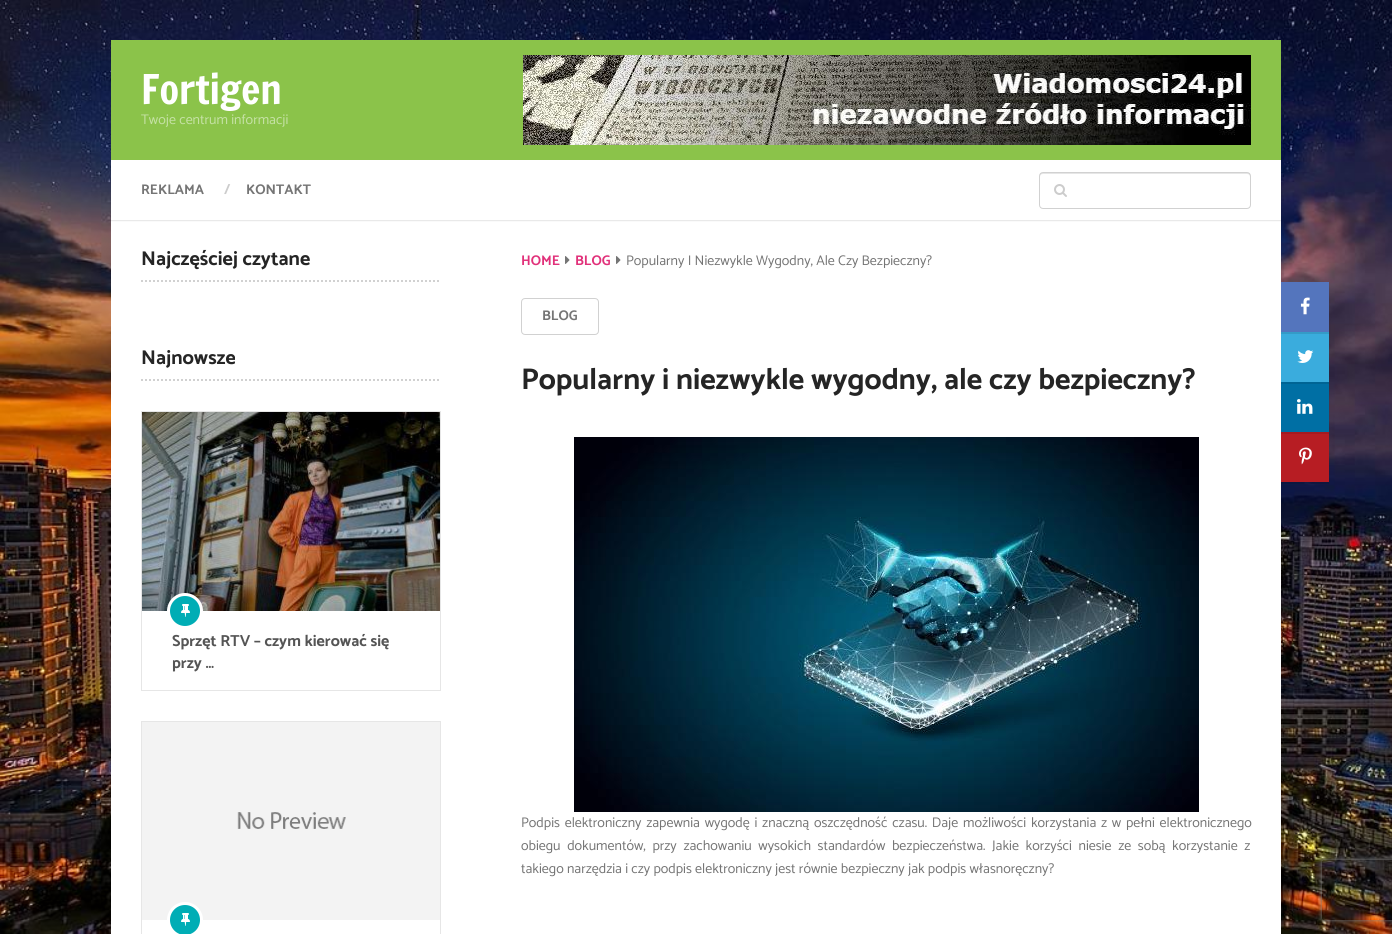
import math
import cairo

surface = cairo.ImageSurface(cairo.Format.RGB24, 1392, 934)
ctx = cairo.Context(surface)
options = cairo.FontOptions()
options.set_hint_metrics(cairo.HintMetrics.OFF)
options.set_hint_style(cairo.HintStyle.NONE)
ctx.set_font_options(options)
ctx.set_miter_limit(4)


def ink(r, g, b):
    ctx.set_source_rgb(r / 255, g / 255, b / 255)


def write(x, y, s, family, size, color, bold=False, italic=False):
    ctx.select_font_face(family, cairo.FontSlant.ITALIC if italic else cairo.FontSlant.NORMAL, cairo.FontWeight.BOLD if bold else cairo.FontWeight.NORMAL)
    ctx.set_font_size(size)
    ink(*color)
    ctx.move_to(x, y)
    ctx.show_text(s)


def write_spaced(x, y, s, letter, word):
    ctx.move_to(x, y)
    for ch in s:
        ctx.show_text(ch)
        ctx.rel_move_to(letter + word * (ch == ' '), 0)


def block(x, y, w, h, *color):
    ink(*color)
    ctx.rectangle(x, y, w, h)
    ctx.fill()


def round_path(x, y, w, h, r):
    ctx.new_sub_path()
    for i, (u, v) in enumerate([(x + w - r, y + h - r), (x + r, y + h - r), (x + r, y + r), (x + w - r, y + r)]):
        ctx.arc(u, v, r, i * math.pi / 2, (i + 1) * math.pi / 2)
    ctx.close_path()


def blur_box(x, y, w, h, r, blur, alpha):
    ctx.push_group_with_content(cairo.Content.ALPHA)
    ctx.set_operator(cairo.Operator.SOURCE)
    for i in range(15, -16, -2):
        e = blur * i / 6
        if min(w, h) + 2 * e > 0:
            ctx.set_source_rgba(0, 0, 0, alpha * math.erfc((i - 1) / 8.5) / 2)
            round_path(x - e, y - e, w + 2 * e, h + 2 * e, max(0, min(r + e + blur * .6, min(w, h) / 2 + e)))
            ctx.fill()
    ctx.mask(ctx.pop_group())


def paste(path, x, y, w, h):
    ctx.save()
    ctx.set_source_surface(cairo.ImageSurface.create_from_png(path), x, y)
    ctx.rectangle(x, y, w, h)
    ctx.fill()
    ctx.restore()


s1 = dict(family="Francois One", size=40, color=(255, 255, 255))
s2 = dict(family="Catamaran", size=14, color=(197, 225, 165))
s3 = dict(family="Catamaran", size=14, color=(117, 117, 117), bold=True)
s4 = dict(family="Catamaran", size=14, color=(204, 204, 204), bold=True)
s5 = dict(family="Catamaran", size=20, color=(37, 37, 37), bold=True)
s6 = dict(family="Catamaran", size=16, color=(85, 85, 85), bold=True)
s7 = dict(family="Catamaran", size=14, color=(225, 49, 122), bold=True)
s8 = dict(family="Catamaran", size=14, color=(117, 117, 117))
s9 = dict(family="Catamaran", size=30, color=(37, 37, 37), bold=True)

ink(255, 255, 255)
ctx.paint()
paste("pic1.png", 0, 0, 1392, 934)
block(111, 40, 1170, 120, 139, 195, 74)
write(141, 104, "Fortigen", **s1)
write(141, 124, "Twoje centrum informacji", **s2)
paste("pic2.png", 523, 55, 728, 90)
block(111, 220, 1170, 714, 255, 255, 255)
ink(0, 0, 0)
blur_box(111, 161, 1170, 60, 0, 0.5, 0.1)
block(111, 160, 1170, 60, 255, 255, 255)
write(141, 194, "REKLAMA", **s3)
write(224, 194, "/", **s4)
write(246, 194, "KONTAKT", **s3)
ink(230, 230, 230)
ctx.new_path()
ctx.move_to(1043, 174)
ctx.line_to(1247, 174)
ctx.curve_to(1249, 174, 1250, 175, 1250, 177)
ctx.line_to(1250, 176)
ctx.curve_to(1250, 174, 1249, 173, 1247, 173)
ctx.line_to(1043, 173)
ctx.curve_to(1041, 173, 1040, 174, 1040, 176)
ctx.line_to(1040, 177)
ctx.curve_to(1040, 175, 1041, 174, 1043, 174)
ctx.close_path()
ctx.fill()
round_path(1039.5, 172.5, 211, 36, 3.5)
ctx.set_source_rgba(0, 0, 0, 0.18)
ctx.set_line_width(1)
ctx.stroke()
paste("pic3.png", 1054, 184, 13, 13)
ctx.new_path()
ctx.move_to(141, 281)
ctx.line_to(441, 281)
ink(209, 209, 209)
ctx.set_line_width(2)
ctx.set_dash([2, 2])
ctx.stroke()
write(141, 265, "Najczęściej czytane", **s5)
ctx.new_path()
ctx.move_to(141, 380)
ctx.line_to(441, 380)
ink(209, 209, 209)
ctx.stroke()
write(141, 364, "Najnowsze", **s5)
ctx.rectangle(141.5, 411.5, 299, 279)
ink(230, 230, 230)
ctx.set_line_width(1)
ctx.set_dash([])
ctx.stroke()
paste("pic4.png", 142, 412, 298, 199)
ink(0, 173, 181)
ctx.arc(185, 611, 16.5, 0, 2 * math.pi)
ctx.fill_preserve()
ink(255, 255, 255)
ctx.set_line_width(3)
ctx.stroke()
paste("pic5.png", 181, 604, 9, 13)
write(172, 646, "Sprzęt RTV – czym kierować się", **s6)
write(172, 668, "przy …", **s6)
ctx.rectangle(141.5, 721.5, 299, 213)
ink(230, 230, 230)
ctx.set_line_width(1)
ctx.stroke()
paste("pic6.png", 142, 722, 298, 198)
ink(0, 173, 181)
ctx.arc(185, 920, 16.5, 0, 2 * math.pi)
ctx.fill_preserve()
ink(255, 255, 255)
ctx.set_line_width(3)
ctx.stroke()
paste("pic5.png", 181, 913, 9, 13)
write(521, 265, "HOME", **s7)
paste("pic7.png", 565, 256, 5, 8)
write(575, 265, "BLOG", **s7)
paste("pic7.png", 616, 256, 5, 8)
write(626, 265, "Popularny I Niezwykle Wygodny, Ale Czy Bezpieczny?", **s8)
round_path(521.5, 298.5, 77, 36, 3.5)
ink(209, 209, 209)
ctx.set_line_width(1)
ctx.stroke()
write(542, 320, "BLOG", **s3)
write(521, 389, "Popularny i niezwykle wygodny, ale czy bezpieczny?", **s9)
block(1281, 282, 48, 50, 93, 130, 209)
block(1281, 332, 48, 50, 64, 191, 245)
ctx.set_source_rgba(0, 0, 0, 0.1)
ctx.rectangle(1281, 282, 48, 52)
ctx.fill()
paste("pic8.png", 1300, 297, 10, 18)
block(1281, 382, 48, 50, 0, 123, 182)
ctx.set_source_rgba(0, 0, 0, 0.1)
ctx.rectangle(1281, 332, 48, 52)
ctx.fill()
paste("pic9.png", 1297, 350, 17, 13)
block(1281, 432, 48, 50, 203, 32, 39)
ctx.set_source_rgba(0, 0, 0, 0.1)
ctx.rectangle(1281, 382, 48, 52)
ctx.fill()
paste("pic10.png", 1297, 399, 16, 15)
ctx.rectangle(1281, 432, 48, 52)
ctx.fill()
paste("pic11.png", 1299, 447, 13, 18)
paste("pic12.png", 574, 437, 625, 375)
ctx.select_font_face("Catamaran")
ctx.set_font_size(14)
ink(117, 117, 117)
write_spaced(521, 827, "Podpis elektroniczny zapewnia wygodę i znaczną oszczędność czasu. Daje możliwości korzystania z w pełni elektronicznego", 0, 1.5)
write_spaced(521, 850, "obiegu dokumentów, przy zachowaniu wysokich standardów bezpieczeństwa. Jakie korzyści niesie ze sobą korzystanie z", 0, 3.4)
write(521, 873, "takiego narzędzia i czy podpis elektroniczny jest równie bezpieczny jak podpis własnoręczny?", **s8)
ctx.save()
ctx.set_fill_rule(cairo.FillRule.EVEN_ODD)
ctx.new_path()
ctx.move_to(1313, 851)
ctx.line_to(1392, 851)
ctx.line_to(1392, 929)
ctx.line_to(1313, 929)
ctx.close_path()
ctx.move_to(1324, 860)
ctx.line_to(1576, 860)
ctx.curve_to(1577, 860, 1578, 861, 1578, 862)
ctx.line_to(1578, 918)
ctx.curve_to(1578, 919, 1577, 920, 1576, 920)
ctx.line_to(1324, 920)
ctx.curve_to(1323, 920, 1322, 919, 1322, 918)
ctx.line_to(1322, 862)
ctx.curve_to(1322, 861, 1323, 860, 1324, 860)
ctx.close_path()
ctx.clip()
ink(128, 128, 128)
blur_box(1322, 860, 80, 60, 2, 2.5, 1)
ctx.restore()
surface.write_to_png("screenshot.png")
